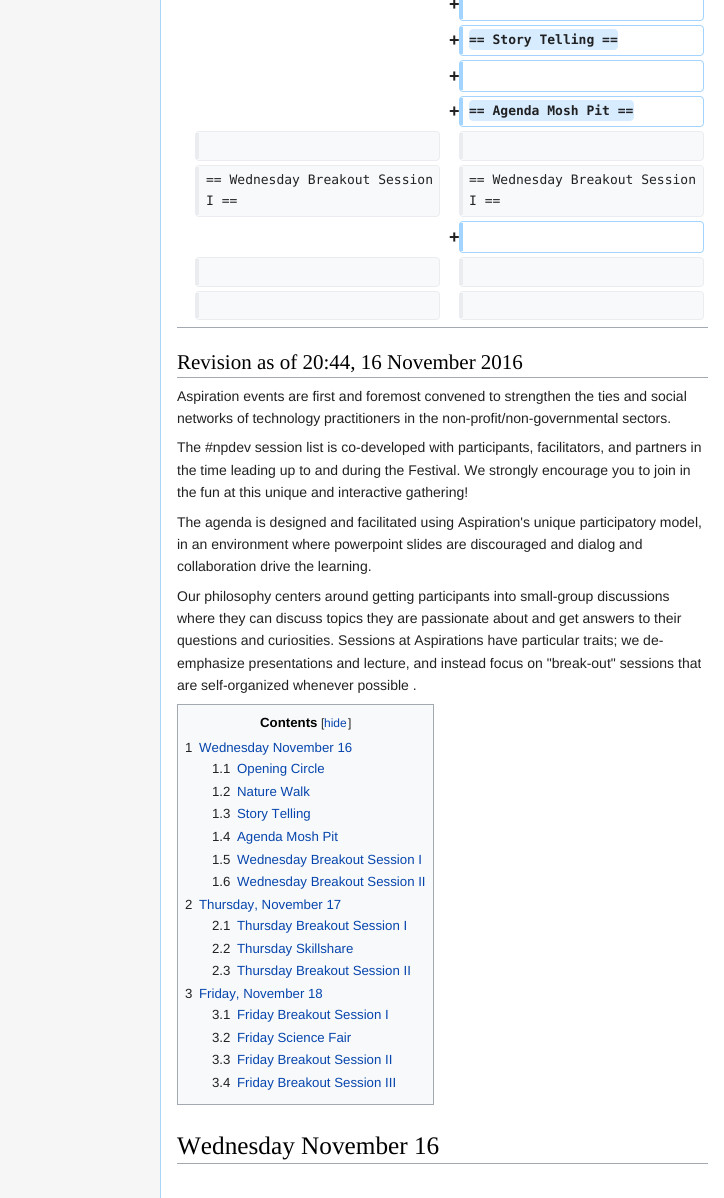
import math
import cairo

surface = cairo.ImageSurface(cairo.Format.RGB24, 724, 1198)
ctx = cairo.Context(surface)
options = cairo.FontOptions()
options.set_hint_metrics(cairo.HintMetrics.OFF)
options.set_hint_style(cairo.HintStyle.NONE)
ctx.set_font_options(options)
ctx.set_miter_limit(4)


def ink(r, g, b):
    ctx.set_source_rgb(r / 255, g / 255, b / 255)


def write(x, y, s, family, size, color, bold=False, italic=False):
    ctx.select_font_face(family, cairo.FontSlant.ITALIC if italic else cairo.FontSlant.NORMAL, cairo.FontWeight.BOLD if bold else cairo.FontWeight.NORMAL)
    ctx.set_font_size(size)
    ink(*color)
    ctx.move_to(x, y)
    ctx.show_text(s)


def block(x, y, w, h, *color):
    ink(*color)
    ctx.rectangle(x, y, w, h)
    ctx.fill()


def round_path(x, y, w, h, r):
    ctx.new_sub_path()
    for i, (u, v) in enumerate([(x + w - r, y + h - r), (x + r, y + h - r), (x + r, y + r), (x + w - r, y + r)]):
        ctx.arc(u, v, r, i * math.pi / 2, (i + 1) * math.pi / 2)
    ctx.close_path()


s1 = dict(family="Liberation Sans", size=18, color=(32, 33, 34), bold=True)
s2 = dict(family="DejaVu Sans Mono", size=13, color=(32, 33, 34), bold=True)
s3 = dict(family="DejaVu Sans Mono", size=13, color=(32, 33, 34))
s4 = dict(family="Liberation Serif", size=21, color=(0, 0, 0))
s5 = dict(family="Liberation Sans", size=14, color=(32, 33, 34))
s6 = dict(family="Liberation Sans", size=13.25, color=(0, 0, 0), bold=True)
s7 = dict(family="Liberation Sans", size=12, color=(32, 33, 34))
s8 = dict(family="Liberation Sans", size=12, color=(6, 69, 173))
s9 = dict(family="Liberation Sans", size=13.25, color=(32, 33, 34))
s10 = dict(family="Liberation Sans", size=13.25, color=(6, 69, 173))
s11 = dict(family="Liberation Serif", size=25.25, color=(0, 0, 0))

ink(246, 246, 246)
ctx.paint()
block(161, 0, 563, 1198, 255, 255, 255)
block(160, 0, 1, 1198, 167, 215, 249)
write(449, 10, "+", **s1)
round_path(459.5, -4.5, 244, 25, 3.5)
ink(163, 211, 255)
ctx.set_line_width(1)
ctx.stroke()
block(460, 0, 3, 19, 163, 211, 255)
write(449, 46, "+", **s1)
round_path(459.5, 25.5, 244, 30, 3.5)
ink(163, 211, 255)
ctx.stroke()
block(460, 27, 3, 27, 163, 211, 255)
ink(216, 236, 255)
round_path(469, 29, 149, 21, 4)
ctx.fill()
write(469, 44, "== Story Telling ==", **s2)
write(449, 82, "+", **s1)
round_path(459.5, 60.5, 244, 31, 3.5)
ink(163, 211, 255)
ctx.stroke()
block(460, 62, 3, 28, 163, 211, 255)
write(449, 117, "+", **s1)
round_path(459.5, 96.5, 244, 30, 3.5)
ink(163, 211, 255)
ctx.stroke()
block(460, 98, 3, 27, 163, 211, 255)
ink(216, 236, 255)
round_path(469, 100, 165, 21, 4)
ctx.fill()
write(469, 115, "== Agenda Mosh Pit ==", **s2)
ink(248, 249, 250)
ctx.new_path()
ctx.move_to(199, 132)
ctx.line_to(437, 132)
ctx.curve_to(440, 133, 439, 137, 439, 139)
ctx.line_to(439, 150)
ctx.curve_to(439, 152, 441, 160, 436, 160)
ctx.line_to(199, 160)
ctx.close_path()
ctx.fill()
round_path(195.5, 131.5, 244, 29, 3.5)
ink(234, 236, 240)
ctx.stroke()
block(196, 133, 3, 26, 234, 236, 240)
ink(248, 249, 250)
ctx.new_path()
ctx.move_to(463, 132)
ctx.line_to(701, 132)
ctx.curve_to(704, 133, 703, 137, 703, 139)
ctx.line_to(703, 150)
ctx.curve_to(703, 152, 705, 160, 700, 160)
ctx.line_to(463, 160)
ctx.close_path()
ctx.fill()
round_path(459.5, 131.5, 244, 29, 3.5)
ink(234, 236, 240)
ctx.stroke()
block(460, 133, 3, 26, 234, 236, 240)
ink(248, 249, 250)
ctx.new_path()
ctx.move_to(199, 166)
ctx.line_to(436, 166)
ctx.curve_to(438, 166, 439, 167, 439, 169)
ctx.line_to(439, 213)
ctx.curve_to(439, 215, 438, 216, 436, 216)
ctx.line_to(199, 216)
ctx.close_path()
ctx.fill()
round_path(195.5, 165.5, 244, 51, 3.5)
ink(234, 236, 240)
ctx.stroke()
block(196, 167, 3, 48, 234, 236, 240)
write(206, 184, "== Wednesday Breakout Session", **s3)
write(206, 205, "I ==", **s3)
ink(248, 249, 250)
ctx.new_path()
ctx.move_to(463, 166)
ctx.line_to(700, 166)
ctx.curve_to(702, 166, 703, 167, 703, 169)
ctx.line_to(703, 213)
ctx.curve_to(703, 215, 702, 216, 700, 216)
ctx.line_to(463, 216)
ctx.close_path()
ctx.fill()
round_path(459.5, 165.5, 244, 51, 3.5)
ink(234, 236, 240)
ctx.stroke()
block(460, 167, 3, 48, 234, 236, 240)
write(469, 184, "== Wednesday Breakout Session", **s3)
write(469, 205, "I ==", **s3)
write(449, 243, "+", **s1)
round_path(459.5, 221.5, 244, 31, 3.5)
ink(163, 211, 255)
ctx.stroke()
block(460, 223, 3, 28, 163, 211, 255)
ink(248, 249, 250)
ctx.new_path()
ctx.move_to(199, 258)
ctx.line_to(437, 258)
ctx.curve_to(440, 259, 439, 263, 439, 265)
ctx.line_to(439, 276)
ctx.curve_to(439, 278, 441, 286, 436, 286)
ctx.line_to(199, 286)
ctx.close_path()
ctx.fill()
round_path(195.5, 257.5, 244, 29, 3.5)
ink(234, 236, 240)
ctx.stroke()
block(196, 259, 3, 26, 234, 236, 240)
ink(248, 249, 250)
ctx.new_path()
ctx.move_to(463, 258)
ctx.line_to(701, 258)
ctx.curve_to(704, 259, 703, 263, 703, 265)
ctx.line_to(703, 276)
ctx.curve_to(703, 278, 705, 286, 700, 286)
ctx.line_to(463, 286)
ctx.close_path()
ctx.fill()
round_path(459.5, 257.5, 244, 29, 3.5)
ink(234, 236, 240)
ctx.stroke()
block(460, 259, 3, 26, 234, 236, 240)
ink(248, 249, 250)
ctx.new_path()
ctx.move_to(199, 292)
ctx.line_to(436, 292)
ctx.curve_to(438, 292, 439, 293, 439, 295)
ctx.line_to(439, 316)
ctx.curve_to(439, 318, 438, 319, 436, 319)
ctx.line_to(199, 319)
ctx.close_path()
ctx.fill()
round_path(195.5, 291.5, 244, 28, 3.5)
ink(234, 236, 240)
ctx.stroke()
block(196, 293, 3, 25, 234, 236, 240)
ink(248, 249, 250)
ctx.new_path()
ctx.move_to(463, 292)
ctx.line_to(700, 292)
ctx.curve_to(702, 292, 703, 293, 703, 295)
ctx.line_to(703, 316)
ctx.curve_to(703, 318, 702, 319, 700, 319)
ctx.line_to(463, 319)
ctx.close_path()
ctx.fill()
round_path(459.5, 291.5, 244, 28, 3.5)
ink(234, 236, 240)
ctx.stroke()
block(460, 293, 3, 25, 234, 236, 240)
block(177, 327, 531, 1, 162, 169, 177)
block(177, 377, 531, 1, 162, 169, 177)
write(177, 369, "Revision as of 20:44, 16 November 2016", **s4)
write(177, 401, "Aspiration events are first and foremost convened to strengthen the ties and social", **s5)
write(177, 423, "networks of technology practitioners in the non-profit/non-governmental sectors.", **s5)
write(177, 452, "The #npdev session list is co-developed with participants, facilitators, and partners in", **s5)
write(177, 475, "the time leading up to and during the Festival. We strongly encourage you to join in", **s5)
write(177, 497, "the fun at this unique and interactive gathering!", **s5)
write(177, 527, "The agenda is designed and facilitated using Aspiration's unique participatory model,", **s5)
write(177, 549, "in an environment where powerpoint slides are discouraged and dialog and", **s5)
write(177, 571, "collaboration drive the learning.", **s5)
write(177, 601, "Our philosophy centers around getting participants into small-group discussions", **s5)
write(177, 623, "where they can discuss topics they are passionate about and get answers to their", **s5)
write(177, 645, "questions and curiosities. Sessions at Aspirations have particular traits; we de-", **s5)
write(177, 668, "emphasize presentations and lecture, and instead focus on \"break-out\" sessions that", **s5)
write(177, 690, "are self-organized whenever possible .", **s5)
ink(248, 249, 250)
ctx.rectangle(177.5, 704.5, 256, 400)
ctx.fill_preserve()
ink(162, 169, 177)
ctx.stroke()
write(260, 727, "Contents", **s6)
write(321, 727, "[", **s7)
write(324, 727, "hide", **s8)
write(348, 727, "]", **s7)
write(185, 752, "1", **s9)
write(199, 752, "Wednesday November 16", **s10)
write(212, 773, "1.1", **s9)
write(237, 773, "Opening Circle", **s10)
write(212, 796, "1.2", **s9)
write(237, 796, "Nature Walk", **s10)
write(212, 818, "1.3", **s9)
write(237, 818, "Story Telling", **s10)
write(212, 841, "1.4", **s9)
write(237, 841, "Agenda Mosh Pit", **s10)
write(212, 864, "1.5", **s9)
write(237, 864, "Wednesday Breakout Session I", **s10)
write(212, 886, "1.6", **s9)
write(237, 886, "Wednesday Breakout Session II", **s10)
write(185, 909, "2", **s9)
write(199, 909, "Thursday, November 17", **s10)
write(212, 930, "2.1", **s9)
write(237, 930, "Thursday Breakout Session I", **s10)
write(212, 953, "2.2", **s9)
write(237, 953, "Thursday Skillshare", **s10)
write(212, 975, "2.3", **s9)
write(237, 975, "Thursday Breakout Session II", **s10)
write(185, 998, "3", **s9)
write(199, 998, "Friday, November 18", **s10)
write(212, 1019, "3.1", **s9)
write(237, 1019, "Friday Breakout Session I", **s10)
write(212, 1042, "3.2", **s9)
write(237, 1042, "Friday Science Fair", **s10)
write(212, 1064, "3.3", **s9)
write(237, 1064, "Friday Breakout Session II", **s10)
write(212, 1087, "3.4", **s9)
write(237, 1087, "Friday Breakout Session III", **s10)
block(177, 1163, 531, 1, 162, 169, 177)
write(177, 1154, "Wednesday November 16", **s11)
surface.write_to_png("screenshot.png")
